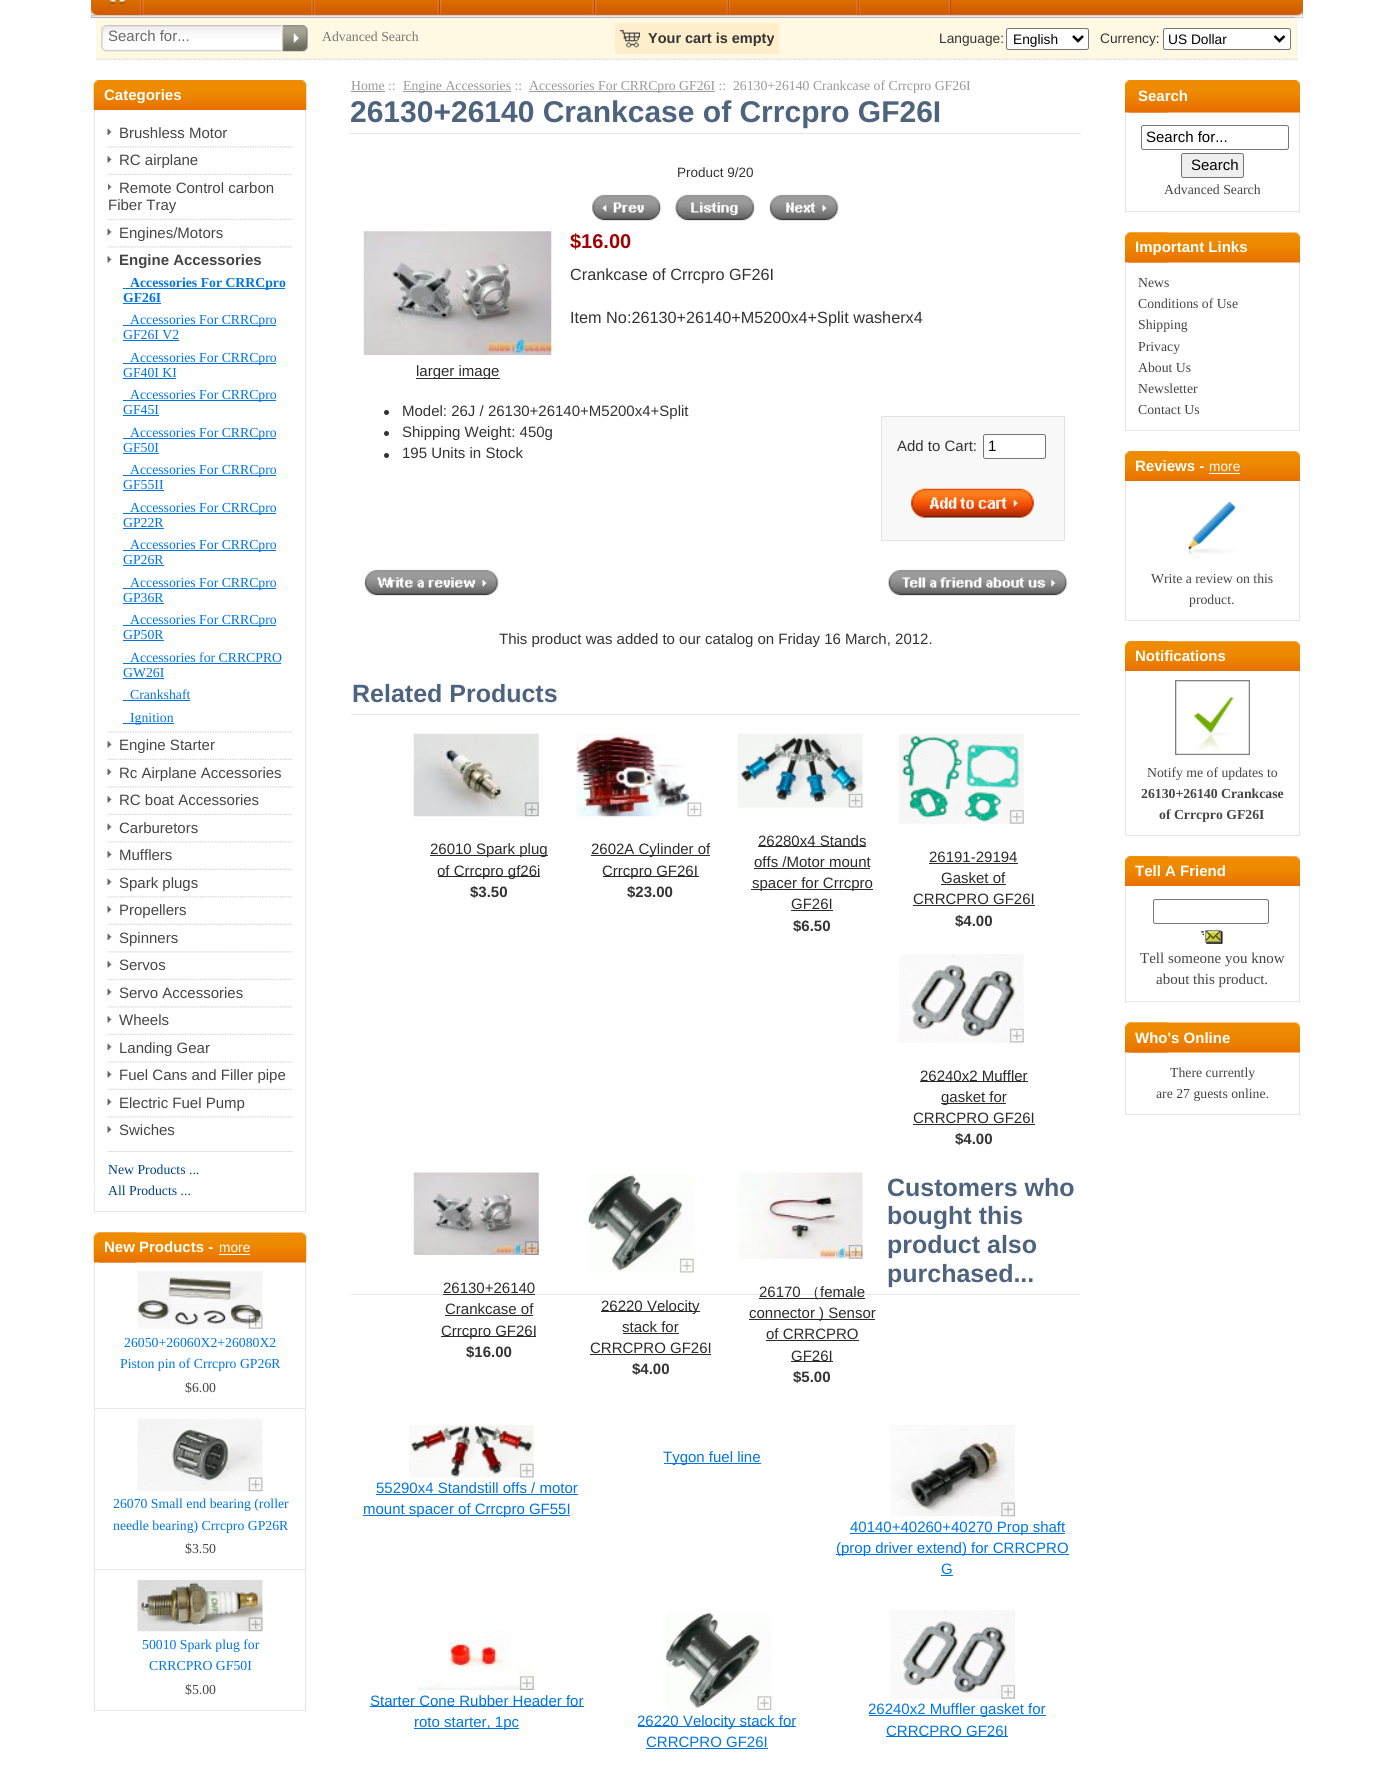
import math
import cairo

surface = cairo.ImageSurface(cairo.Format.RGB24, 1393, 1773)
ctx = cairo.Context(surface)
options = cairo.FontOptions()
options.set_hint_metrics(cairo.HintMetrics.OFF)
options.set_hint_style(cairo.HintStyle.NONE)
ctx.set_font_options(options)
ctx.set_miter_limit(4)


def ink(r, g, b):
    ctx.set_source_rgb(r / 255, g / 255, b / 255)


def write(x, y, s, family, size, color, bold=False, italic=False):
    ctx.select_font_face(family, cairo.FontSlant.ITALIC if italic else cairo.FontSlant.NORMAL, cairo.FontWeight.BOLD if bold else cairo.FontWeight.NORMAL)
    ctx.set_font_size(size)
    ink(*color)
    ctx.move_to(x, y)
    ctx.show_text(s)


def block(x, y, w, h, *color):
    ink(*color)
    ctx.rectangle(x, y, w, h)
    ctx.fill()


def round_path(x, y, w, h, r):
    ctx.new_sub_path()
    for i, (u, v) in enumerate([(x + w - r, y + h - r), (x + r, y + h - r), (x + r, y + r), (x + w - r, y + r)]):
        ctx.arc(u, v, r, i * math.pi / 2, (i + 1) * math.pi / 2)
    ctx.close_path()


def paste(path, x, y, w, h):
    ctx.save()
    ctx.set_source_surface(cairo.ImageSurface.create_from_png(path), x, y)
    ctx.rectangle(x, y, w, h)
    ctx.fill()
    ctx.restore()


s1 = dict(family="Liberation Sans", size=15, color=(105, 105, 105))
s2 = dict(family="Liberation Serif", size=13.75, color=(117, 117, 117))
s3 = dict(family="Liberation Sans", size=14.5, color=(51, 51, 51), bold=True)
s4 = dict(family="Liberation Sans", size=13.75, color=(51, 51, 51))
s5 = dict(family="Liberation Sans", size=13.75, color=(0, 0, 0))
s6 = dict(family="Liberation Sans", size=15, color=(255, 255, 255), bold=True)
s7 = dict(family="Liberation Sans", size=15, color=(69, 69, 69))
s8 = dict(family="Liberation Sans", size=15, color=(69, 69, 69), bold=True)
s9 = dict(family="Liberation Serif", size=13.75, color=(0, 117, 226), bold=True)
s10 = dict(family="Liberation Serif", size=13.75, color=(0, 117, 226))
s11 = dict(family="Liberation Serif", size=13.75, color=(0, 64, 128))
s12 = dict(family="Liberation Sans", size=13.75, color=(255, 255, 255))
s13 = dict(family="Liberation Serif", size=13.75, color=(69, 69, 69))
s14 = dict(family="Liberation Serif", size=13.75, color=(153, 153, 153))
s15 = dict(family="Liberation Sans", size=30, color=(78, 99, 126), bold=True)
s16 = dict(family="Liberation Sans", size=13.5, color=(51, 51, 51))
s17 = dict(family="Liberation Sans", size=20, color=(163, 1, 1), bold=True)
s18 = dict(family="Liberation Sans", size=16.25, color=(51, 51, 51))
s19 = dict(family="Liberation Sans", size=15, color=(43, 43, 43))
s20 = dict(family="Liberation Sans", size=15, color=(51, 51, 51))
s21 = dict(family="Liberation Sans", size=15, color=(0, 0, 0))
s22 = dict(family="Liberation Sans", size=25, color=(78, 99, 126), bold=True)
s23 = dict(family="Liberation Sans", size=15, color=(51, 51, 51), bold=True)
s24 = dict(family="WenQuanYi Zen Hei Medium", size=15, color=(43, 43, 43))
s25 = dict(family="Liberation Sans", size=15, color=(0, 117, 226))
s26 = dict(family="Liberation Serif", size=13.75, color=(69, 69, 69), bold=True)
s27 = dict(family="Liberation Serif", size=15, color=(69, 69, 69))

ink(255, 255, 255)
ctx.paint()
block(91, 0, 1212, 18, 119, 119, 119)
paste("pic1.png", 91, 0, 1212, 18)
paste("pic2.png", 91, 0, 1, 15)
block(141, 0, 1, 15, 204, 60, 28)
paste("pic3.png", 91, 0, 51, 15)
paste("pic4.png", 142, 0, 2, 14)
block(313, 0, 1, 14, 204, 60, 28)
paste("pic5.png", 311, 0, 2, 14)
paste("pic6.png", 313, 0, 3, 14)
block(439, 0, 1, 14, 204, 60, 28)
paste("pic7.png", 437, 0, 2, 14)
paste("pic8.png", 440, 0, 2, 14)
block(594, 0, 1, 14, 204, 60, 28)
paste("pic7.png", 592, 0, 2, 14)
paste("pic8.png", 595, 0, 2, 14)
block(728, 0, 1, 14, 204, 60, 28)
paste("pic5.png", 726, 0, 2, 14)
paste("pic6.png", 728, 0, 3, 14)
block(858, 0, 1, 14, 204, 60, 28)
paste("pic5.png", 856, 0, 2, 14)
paste("pic6.png", 858, 0, 3, 14)
block(950, 0, 1, 14, 204, 60, 28)
paste("pic9.png", 948, 0, 2, 14)
paste("pic10.png", 1295, 0, 8, 18)
block(96, 18, 1202, 41, 255, 249, 228)
paste("pic11.png", 101, 25, 181, 27)
write(108, 41, "Search for...", **s1)
paste("pic12.png", 282, 25, 26, 27)
write(322, 41, "Advanced Search", **s2)
block(615, 23, 164, 31, 255, 238, 203)
paste("pic13.png", 620, 29, 20, 19)
write(648, 43, "Your cart is empty", **s3)
write(939, 43, "Language:", **s4)
ink(255, 255, 255)
round_path(1006.5, 28.5, 82, 21, 2)
ctx.fill_preserve()
ink(118, 118, 118)
ctx.set_line_width(1)
ctx.stroke()
ctx.new_path()
ctx.move_to(1073, 36)
ctx.line_to(1078, 41)
ctx.line_to(1083, 36)
ink(0, 0, 0)
ctx.set_line_width(2.5)
ctx.stroke()
write(1013, 44, "English", **s5)
write(1100, 43, "Currency:", **s4)
ink(255, 255, 255)
round_path(1163.5, 28.5, 127, 21, 2)
ctx.fill_preserve()
ink(118, 118, 118)
ctx.set_line_width(1)
ctx.stroke()
ctx.new_path()
ctx.move_to(1274.5, 36)
ctx.line_to(1279.5, 41)
ctx.line_to(1284.5, 36)
ink(0, 0, 0)
ctx.set_line_width(2.5)
ctx.stroke()
write(1168, 44, "US Dollar", **s5)
paste("pic14.png", 96, 58, 1202, 2)
paste("pic15.png", 93, 80, 6, 30)
paste("pic16.png", 98, 80, 209, 30)
write(104, 100, "Categories", **s6)
block(305, 110, 1, 1103, 230, 230, 230)
block(94, 1211, 212, 1, 230, 230, 230)
block(94, 110, 1, 1103, 230, 230, 230)
paste("pic17.png", 107, 128, 5, 7)
write(119, 138, "Brushless Motor", **s7)
paste("pic18.png", 107, 146, 186, 2)
paste("pic19.png", 107, 156, 5, 7)
write(119, 165, "RC airplane", **s7)
paste("pic20.png", 107, 173, 186, 2)
paste("pic21.png", 108, 183, 4, 7)
write(119, 193, "Remote Control carbon", **s7)
write(108, 210, "Fiber Tray", **s7)
paste("pic20.png", 107, 218, 186, 2)
paste("pic17.png", 107, 228, 5, 7)
write(119, 238, "Engines/Motors", **s7)
paste("pic18.png", 107, 246, 186, 2)
paste("pic19.png", 107, 256, 5, 7)
write(119, 265, "Engine Accessories", **s8)
block(123, 288, 162, 1, 0, 117, 226)
write(130, 287, "Accessories For CRRCpro", **s9)
write(123, 302, "GF26I", **s9)
block(123, 303, 38, 1, 0, 117, 226)
block(123, 325, 153, 1, 0, 117, 226)
write(130, 324, "Accessories For CRRCpro", **s10)
write(123, 339, "GF26I V2", **s10)
block(123, 340, 56, 1, 0, 117, 226)
block(123, 363, 153, 1, 0, 117, 226)
write(130, 362, "Accessories For CRRCpro", **s10)
write(123, 377, "GF40I KI", **s10)
block(123, 378, 53, 1, 0, 117, 226)
block(123, 400, 153, 1, 0, 117, 226)
write(130, 399, "Accessories For CRRCpro", **s10)
write(123, 414, "GF45I", **s10)
block(123, 415, 36, 1, 0, 117, 226)
block(123, 438, 153, 1, 0, 117, 226)
write(130, 437, "Accessories For CRRCpro", **s10)
write(123, 452, "GF50I", **s10)
block(123, 453, 36, 1, 0, 117, 226)
block(123, 475, 153, 1, 0, 117, 226)
write(130, 474, "Accessories For CRRCpro", **s10)
write(123, 489, "GF55II", **s10)
block(123, 490, 41, 1, 0, 117, 226)
block(123, 513, 153, 1, 0, 117, 226)
write(130, 512, "Accessories For CRRCpro", **s10)
write(123, 527, "GP22R", **s10)
block(123, 528, 41, 1, 0, 117, 226)
block(123, 550, 153, 1, 0, 117, 226)
write(130, 549, "Accessories For CRRCpro", **s10)
write(123, 564, "GP26R", **s10)
block(123, 565, 41, 1, 0, 117, 226)
block(123, 588, 153, 1, 0, 117, 226)
write(130, 587, "Accessories For CRRCpro", **s10)
write(123, 602, "GP36R", **s10)
block(123, 603, 41, 1, 0, 117, 226)
block(123, 625, 153, 1, 0, 117, 226)
write(130, 624, "Accessories For CRRCpro", **s10)
write(123, 639, "GP50R", **s10)
block(123, 640, 41, 1, 0, 117, 226)
write(130, 662, "Accessories for CRRCPRO", **s10)
block(123, 663, 158, 1, 0, 117, 226)
write(123, 677, "GW26I", **s10)
block(123, 678, 41, 1, 0, 117, 226)
write(130, 699, "Crankshaft", **s10)
block(123, 700, 67, 1, 0, 117, 226)
block(123, 723, 51, 1, 0, 117, 226)
write(130, 722, "Ignition", **s10)
paste("pic18.png", 107, 731, 186, 2)
paste("pic19.png", 107, 741, 5, 7)
write(119, 750, "Engine Starter", **s7)
paste("pic20.png", 107, 758, 186, 2)
paste("pic17.png", 107, 768, 5, 7)
write(119, 778, "Rc Airplane Accessories", **s7)
paste("pic18.png", 107, 786, 186, 2)
paste("pic19.png", 107, 796, 5, 7)
write(119, 805, "RC boat Accessories", **s7)
paste("pic20.png", 107, 813, 186, 2)
paste("pic17.png", 107, 823, 5, 7)
write(119, 833, "Carburetors", **s7)
paste("pic18.png", 107, 841, 186, 2)
paste("pic19.png", 107, 851, 5, 7)
write(119, 860, "Mufflers", **s7)
paste("pic20.png", 107, 868, 186, 2)
paste("pic17.png", 107, 878, 5, 7)
write(119, 888, "Spark plugs", **s7)
paste("pic18.png", 107, 896, 186, 2)
paste("pic19.png", 107, 906, 5, 7)
write(119, 915, "Propellers", **s7)
paste("pic20.png", 107, 923, 186, 2)
paste("pic17.png", 107, 933, 5, 7)
write(119, 943, "Spinners", **s7)
paste("pic18.png", 107, 951, 186, 2)
paste("pic19.png", 107, 961, 5, 7)
write(119, 970, "Servos", **s7)
paste("pic20.png", 107, 978, 186, 2)
paste("pic17.png", 107, 988, 5, 7)
write(119, 998, "Servo Accessories", **s7)
paste("pic18.png", 107, 1006, 186, 2)
paste("pic19.png", 107, 1016, 5, 7)
write(119, 1025, "Wheels", **s7)
paste("pic20.png", 107, 1033, 186, 2)
paste("pic17.png", 107, 1043, 5, 7)
write(119, 1053, "Landing Gear", **s7)
paste("pic18.png", 107, 1061, 186, 2)
paste("pic19.png", 107, 1071, 5, 7)
write(119, 1080, "Fuel Cans and Filler pipe", **s7)
paste("pic20.png", 107, 1088, 186, 2)
paste("pic17.png", 107, 1098, 5, 7)
write(119, 1108, "Electric Fuel Pump", **s7)
paste("pic18.png", 107, 1116, 186, 2)
paste("pic19.png", 107, 1126, 5, 7)
write(119, 1135, "Swiches", **s7)
block(108, 1151, 185, 1, 228, 228, 228)
write(108, 1174, "New Products ...", **s11)
write(108, 1195, "All Products ...", **s11)
paste("pic22.png", 93, 1232, 44, 31)
paste("pic23.png", 98, 1232, 209, 31)
write(104, 1252, "New Products -", **s6)
write(219, 1252, "more", **s12)
block(219, 1254, 31, 1, 255, 255, 255)
block(305, 1263, 1, 448, 230, 230, 230)
block(94, 1408, 212, 1, 230, 230, 230)
block(94, 1263, 1, 146, 230, 230, 230)
paste("pic24.png", 137, 1271, 126, 58)
write(124, 1347, "26050+26060X2+26080X2", **s10)
write(120, 1368, "Piston pin of Crrcpro GP26R", **s10)
write(185, 1392, "$6.00", **s13)
block(94, 1569, 212, 1, 230, 230, 230)
block(94, 1409, 1, 161, 230, 230, 230)
paste("pic25.png", 137, 1419, 126, 73)
write(113, 1508, "26070 Small end bearing (roller", **s10)
write(113, 1530, "needle bearing) Crrcpro GP26R", **s10)
write(185, 1553, "$3.50", **s13)
block(94, 1710, 212, 1, 230, 230, 230)
block(94, 1570, 1, 141, 230, 230, 230)
paste("pic26.png", 137, 1580, 126, 52)
write(142, 1649, "50010 Spark plug for", **s10)
write(149, 1670, "CRRCPRO GF50I", **s10)
write(185, 1694, "$5.00", **s13)
write(351, 90, "Home ::", **s14)
block(351, 91, 34, 1, 153, 153, 153)
block(403, 91, 108, 1, 153, 153, 153)
write(403, 90, "Engine Accessories ::", **s14)
block(529, 91, 186, 1, 153, 153, 153)
write(529, 90, "Accessories For CRRCpro GF26I ::  26130+26140 Crankcase of Crrcpro GF26I", **s14)
block(350, 133, 731, 1, 230, 230, 230)
write(350, 122, "26130+26140 Crankcase of Crrcpro GF26I", **s15)
write(677, 177, "Product 9/20", **s16)
paste("pic27.png", 591, 194, 71, 27)
paste("pic28.png", 675, 194, 80, 27)
paste("pic29.png", 769, 194, 70, 27)
write(570, 248, "$16.00", **s17)
write(570, 280, "Crankcase of Crrcpro GF26I", **s18)
write(570, 323, "Item No:26130+26140+M5200x4+Split washerx4", **s18)
paste("pic30.png", 363, 231, 189, 124)
block(416, 378, 84, 1, 43, 43, 43)
write(416, 376, "larger image", **s19)
ink(51, 51, 51)
ctx.new_path()
ctx.arc(386.5, 412.5, 2.5, 0, 2 * math.pi)
ctx.fill()
write(402, 416, "Model: 26J / 26130+26140+M5200x4+Split", **s20)
ctx.new_path()
ctx.arc(386.5, 433.5, 2.5, 0, 2 * math.pi)
ctx.fill()
write(402, 437, "Shipping Weight: 450g", **s20)
ctx.new_path()
ctx.arc(386.5, 455.5, 2.5, 0, 2 * math.pi)
ctx.fill()
write(402, 458, "195 Units in Stock", **s20)
ink(248, 248, 248)
ctx.rectangle(881.5, 416.5, 183, 124)
ctx.fill_preserve()
ink(226, 226, 226)
ctx.set_line_width(1)
ctx.stroke()
write(897, 451, "Add to Cart:", **s20)
ink(255, 255, 255)
round_path(983.5, 434.5, 62, 24, 2)
ctx.fill_preserve()
ink(118, 118, 118)
ctx.stroke()
write(988, 451, "1", **s21)
paste("pic31.png", 911, 488, 123, 30)
paste("pic32.png", 364, 569, 135, 27)
paste("pic33.png", 888, 569, 180, 27)
write(499, 644, "This product was added to our catalog on Friday 16 March, 2012.", **s20)
block(351, 714, 729, 1, 230, 230, 230)
write(352, 702, "Related Products", **s22)
paste("pic34.png", 413, 733, 126, 84)
block(430, 855, 118, 1, 43, 43, 43)
write(430, 854, "26010 Spark plug", **s19)
block(438, 876, 102, 1, 43, 43, 43)
write(437, 876, "of Crrcpro gf26i", **s19)
write(470, 897, "$3.50", **s23)
paste("pic35.png", 576, 734, 126, 83)
block(591, 855, 119, 1, 43, 43, 43)
write(591, 854, "2602A Cylinder of", **s19)
block(603, 876, 96, 1, 43, 43, 43)
write(602, 876, "Crrcpro GF26I", **s19)
write(627, 897, "$23.00", **s23)
paste("pic36.png", 737, 733, 126, 75)
block(758, 846, 108, 1, 43, 43, 43)
write(758, 846, "26280x4 Stands", **s19)
write(754, 867, "offs /Motor mount", **s19)
block(754, 868, 116, 1, 43, 43, 43)
block(751, 889, 122, 1, 43, 43, 43)
write(752, 888, "spacer for Crrcpro", **s19)
write(791, 909, "GF26I", **s19)
block(791, 910, 42, 1, 43, 43, 43)
write(793, 931, "$6.50", **s23)
paste("pic37.png", 899, 734, 125, 90)
write(929, 862, "26191-29194", **s19)
block(929, 863, 89, 1, 43, 43, 43)
write(941, 883, "Gasket of", **s19)
block(941, 884, 65, 1, 43, 43, 43)
write(913, 904, "CRRCPRO GF26I", **s19)
block(913, 905, 122, 1, 43, 43, 43)
write(955, 926, "$4.00", **s23)
paste("pic38.png", 899, 954, 125, 89)
block(920, 1081, 108, 1, 43, 43, 43)
write(920, 1081, "26240x2 Muffler", **s19)
block(941, 1103, 65, 1, 43, 43, 43)
write(941, 1102, "gasket for", **s19)
write(913, 1123, "CRRCPRO GF26I", **s19)
block(913, 1124, 122, 1, 43, 43, 43)
write(955, 1144, "$4.00", **s23)
paste("pic39.png", 413, 1172, 126, 83)
write(443, 1293, "26130+26140", **s19)
block(351, 1294, 729, 1, 230, 230, 230)
block(443, 1294, 92, 1, 43, 43, 43)
write(445, 1314, "Crankcase of", **s19)
block(445, 1315, 88, 1, 43, 43, 43)
block(441, 1336, 95, 1, 43, 43, 43)
write(441, 1336, "Crrcpro GF26I", **s19)
write(466, 1357, "$16.00", **s23)
paste("pic40.png", 588, 1174, 106, 99)
block(601, 1311, 99, 1, 43, 43, 43)
write(601, 1311, "26220 Velocity", **s19)
write(622, 1332, "stack for", **s19)
block(623, 1333, 56, 1, 43, 43, 43)
write(590, 1353, "CRRCPRO GF26I", **s19)
block(590, 1354, 121, 1, 43, 43, 43)
write(632, 1374, "$4.00", **s23)
paste("pic41.png", 738, 1172, 125, 87)
write(759, 1297, "26170", **s19)
block(759, 1298, 106, 1, 43, 43, 43)
write(805, 1297, "（", **s24)
write(820, 1297, "female", **s19)
block(749, 1319, 126, 1, 43, 43, 43)
write(749, 1318, "connector ) Sensor", **s19)
write(766, 1339, "of CRRCPRO", **s19)
block(766, 1340, 93, 1, 43, 43, 43)
block(791, 1361, 42, 1, 43, 43, 43)
write(791, 1361, "GF26I", **s19)
write(793, 1382, "$5.00", **s23)
write(887, 1196, "Customers who", **s22)
write(887, 1224, "bought this", **s22)
write(887, 1253, "product also", **s22)
write(887, 1282, "purchased...", **s22)
block(664, 1463, 97, 1, 0, 117, 226)
write(663, 1462, "Tygon fuel line", **s25)
paste("pic42.png", 409, 1425, 125, 53)
write(376, 1493, "55290x4 Standstill offs / motor", **s25)
block(376, 1494, 202, 1, 0, 117, 226)
block(363, 1515, 207, 1, 0, 117, 226)
write(363, 1514, "mount spacer of Crrcpro GF55I", **s25)
paste("pic43.png", 890, 1425, 125, 92)
block(850, 1533, 215, 1, 0, 117, 226)
write(850, 1532, "40140+40260+40270 Prop shaft", **s25)
block(836, 1554, 233, 1, 0, 117, 226)
write(836, 1553, "(prop driver extend) for CRRCPRO", **s25)
write(941, 1574, "G", **s25)
block(941, 1575, 12, 1, 0, 117, 226)
paste("pic44.png", 417, 1630, 117, 60)
block(370, 1706, 214, 1, 0, 117, 226)
write(370, 1706, "Starter Cone Rubber Header for", **s25)
block(414, 1728, 105, 1, 0, 117, 226)
write(414, 1727, "roto starter, 1pc", **s25)
paste("pic45.png", 666, 1612, 106, 98)
block(638, 1726, 158, 1, 0, 117, 226)
write(637, 1726, "26220 Velocity stack for", **s25)
write(646, 1747, "CRRCPRO GF26I", **s25)
block(646, 1748, 122, 1, 0, 117, 226)
paste("pic46.png", 890, 1610, 125, 89)
block(869, 1715, 177, 1, 0, 117, 226)
write(868, 1714, "26240x2 Muffler gasket for", **s25)
block(886, 1736, 122, 1, 0, 117, 226)
write(886, 1736, "CRRCPRO GF26I", **s25)
paste("pic47.png", 1125, 80, 43, 33)
paste("pic48.png", 1128, 80, 172, 33)
write(1138, 101, "Search", **s6)
block(1299, 113, 1, 100, 230, 230, 230)
block(1125, 211, 175, 1, 230, 230, 230)
block(1125, 113, 1, 100, 230, 230, 230)
round_path(1141.5, 125.5, 147, 24, 2)
ink(118, 118, 118)
ctx.stroke()
write(1146, 142, "Search for...", **s21)
ink(239, 239, 239)
round_path(1181.5, 153.5, 62, 24, 2)
ctx.fill_preserve()
ink(118, 118, 118)
ctx.stroke()
write(1191, 170, "Search", **s21)
write(1164, 194, "Advanced Search", **s13)
paste("pic49.png", 1125, 232, 43, 31)
paste("pic50.png", 1128, 232, 172, 31)
write(1135, 252, "Important Links", **s6)
block(1299, 263, 1, 168, 230, 230, 230)
block(1125, 430, 175, 1, 230, 230, 230)
block(1125, 263, 1, 168, 230, 230, 230)
write(1138, 287, "News", **s13)
write(1138, 308, "Conditions of Use", **s13)
write(1138, 329, "Shipping", **s13)
write(1138, 351, "Privacy", **s13)
write(1138, 372, "About Us", **s13)
write(1138, 393, "Newsletter", **s13)
write(1138, 414, "Contact Us", **s13)
paste("pic51.png", 1125, 451, 43, 30)
paste("pic52.png", 1128, 451, 172, 30)
write(1135, 471, "Reviews -", **s6)
write(1209, 471, "more", **s12)
block(1209, 473, 31, 1, 255, 255, 255)
block(1299, 481, 1, 140, 230, 230, 230)
block(1125, 620, 175, 1, 230, 230, 230)
block(1125, 481, 1, 140, 230, 230, 230)
paste("pic53.png", 1188, 501, 49, 58)
write(1151, 583, "Write a review on this", **s13)
write(1189, 604, "product.", **s13)
paste("pic51.png", 1125, 641, 43, 30)
paste("pic52.png", 1128, 641, 172, 30)
write(1135, 661, "Notifications", **s6)
block(1299, 671, 1, 165, 230, 230, 230)
block(1125, 835, 175, 1, 230, 230, 230)
block(1125, 671, 1, 165, 230, 230, 230)
paste("pic54.png", 1175, 680, 75, 75)
write(1147, 777, "Notify me of updates to", **s13)
write(1141, 798, "26130+26140 Crankcase", **s26)
write(1159, 819, "of Crrcpro GF26I", **s26)
paste("pic51.png", 1125, 856, 43, 30)
paste("pic52.png", 1128, 856, 172, 30)
write(1135, 876, "Tell A Friend", **s6)
block(1299, 886, 1, 117, 230, 230, 230)
block(1125, 1001, 175, 1, 230, 230, 230)
block(1125, 886, 1, 117, 230, 230, 230)
round_path(1153.5, 899.5, 115, 24, 2)
ink(118, 118, 118)
ctx.stroke()
paste("pic55.png", 1201, 929, 22, 15)
write(1140, 963, "Tell someone you know", **s27)
write(1156, 984, "about this product.", **s27)
paste("pic49.png", 1125, 1022, 43, 31)
paste("pic50.png", 1128, 1022, 172, 31)
write(1135, 1043, "Who's Online", **s6)
block(1299, 1053, 1, 62, 230, 230, 230)
block(1125, 1114, 175, 1, 230, 230, 230)
block(1125, 1053, 1, 62, 230, 230, 230)
write(1170, 1077, "There currently", **s13)
write(1156, 1098, "are 27 guests online.", **s13)
surface.write_to_png("screenshot.png")
